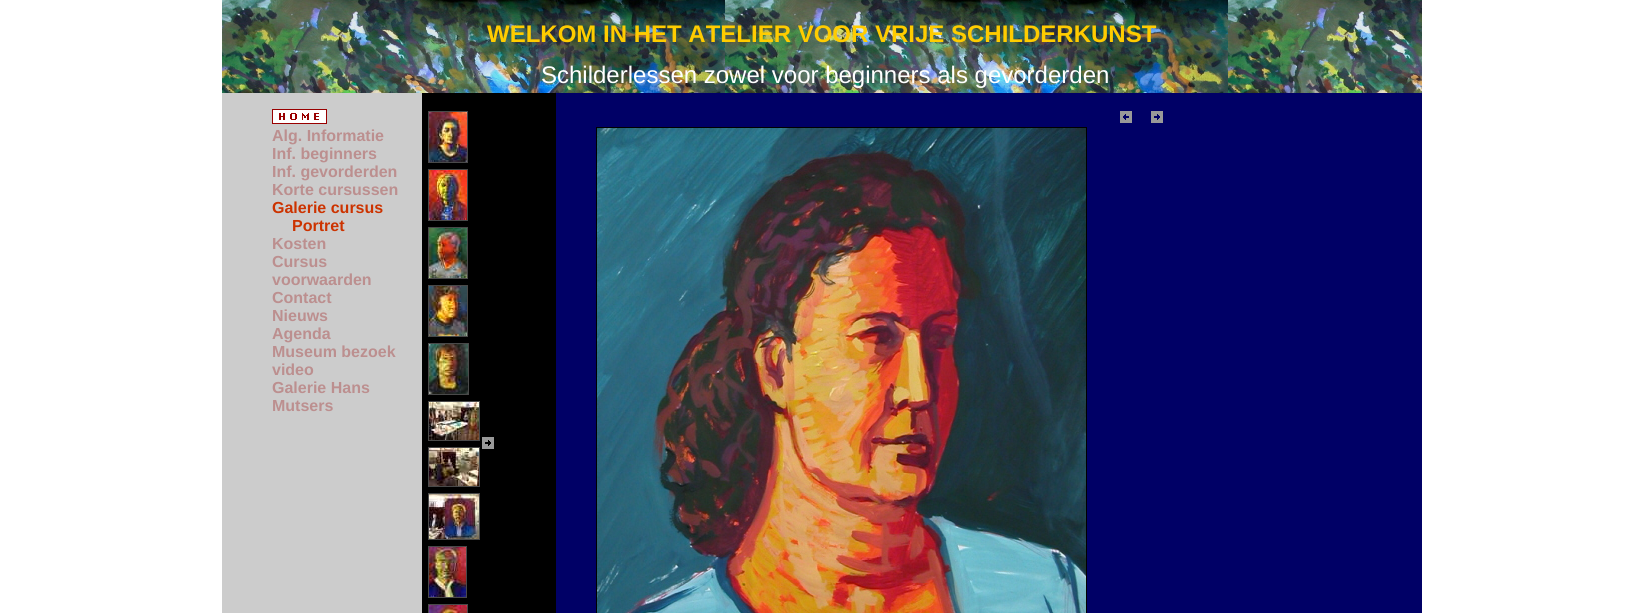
import math
import cairo

surface = cairo.ImageSurface(cairo.Format.RGB24, 1644, 613)
ctx = cairo.Context(surface)
options = cairo.FontOptions()
options.set_hint_metrics(cairo.HintMetrics.OFF)
options.set_hint_style(cairo.HintStyle.NONE)
ctx.set_font_options(options)
ctx.set_miter_limit(4)


def ink(r, g, b):
    ctx.set_source_rgb(r / 255, g / 255, b / 255)


def write(x, y, s, family, size, color, bold=False, italic=False):
    ctx.select_font_face(family, cairo.FontSlant.ITALIC if italic else cairo.FontSlant.NORMAL, cairo.FontWeight.BOLD if bold else cairo.FontWeight.NORMAL)
    ctx.set_font_size(size)
    ink(*color)
    ctx.move_to(x, y)
    ctx.show_text(s)


def block(x, y, w, h, *color):
    ink(*color)
    ctx.rectangle(x, y, w, h)
    ctx.fill()


def paste(path, x, y, w, h):
    ctx.save()
    ctx.set_source_surface(cairo.ImageSurface.create_from_png(path), x, y)
    ctx.rectangle(x, y, w, h)
    ctx.fill()
    ctx.restore()


s1 = dict(family="Liberation Sans", size=24, color=(255, 204, 0), bold=True)
s2 = dict(family="Liberation Sans", size=24, color=(255, 255, 255))
s3 = dict(family="Liberation Sans", size=16, color=(188, 143, 143), bold=True)
s4 = dict(family="Liberation Sans", size=16, color=(204, 51, 0), bold=True)

ink(255, 255, 255)
ctx.paint()
block(556, 93, 866, 520, 0, 0, 102)
paste("pic1.png", 222, 0, 1200, 93)
write(487, 42, "WELKOM IN HET ATELIER VOOR VRIJE SCHILDERKUNST", **s1)
write(541, 83, "Schilderlessen zowel voor beginners als gevorderden", **s2)
block(222, 93, 200, 520, 204, 204, 204)
paste("pic2.png", 272, 109, 55, 15)
write(272, 141, "Alg. Informatie", **s3)
write(272, 159, "Inf. beginners", **s3)
write(272, 177, "Inf. gevorderden", **s3)
write(272, 195, "Korte cursussen", **s3)
write(272, 213, "Galerie cursus", **s4)
write(292, 231, "Portret", **s4)
write(272, 249, "Kosten", **s3)
write(272, 267, "Cursus", **s3)
write(272, 285, "voorwaarden", **s3)
write(272, 303, "Contact", **s3)
write(272, 321, "Nieuws", **s3)
write(272, 339, "Agenda", **s3)
write(272, 357, "Museum bezoek", **s3)
write(272, 375, "video", **s3)
write(272, 393, "Galerie Hans", **s3)
write(272, 411, "Mutsers", **s3)
block(422, 93, 134, 520, 0, 0, 0)
ctx.rectangle(428.5, 111.5, 39, 51)
ink(73, 73, 73)
ctx.set_line_width(1)
ctx.stroke()
paste("pic3.png", 429, 112, 38, 50)
ctx.rectangle(428.5, 169.5, 39, 51)
ctx.stroke()
paste("pic4.png", 429, 170, 38, 50)
ctx.rectangle(428.5, 227.5, 39, 51)
ctx.stroke()
paste("pic5.png", 429, 228, 38, 50)
ctx.rectangle(428.5, 285.5, 39, 51)
ctx.stroke()
paste("pic6.png", 429, 286, 38, 50)
ctx.rectangle(428.5, 343.5, 40, 51)
ctx.stroke()
paste("pic7.png", 429, 344, 39, 50)
ctx.rectangle(428.5, 401.5, 51, 39)
ctx.stroke()
paste("pic8.png", 429, 402, 50, 38)
ctx.rectangle(428.5, 447.5, 51, 39)
ctx.stroke()
paste("pic9.png", 429, 448, 50, 38)
ctx.rectangle(428.5, 493.5, 51, 46)
ctx.stroke()
paste("pic10.png", 429, 494, 50, 45)
ctx.rectangle(428.5, 546.5, 38, 51)
ctx.stroke()
paste("pic11.png", 429, 547, 37, 50)
ctx.rectangle(428.5, 604.5, 39, 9)
ctx.stroke()
paste("pic12.png", 429, 605, 38, 8)
paste("pic13.png", 482, 437, 12, 12)
paste("pic14.png", 1120, 111, 12, 12)
paste("pic15.png", 1151, 111, 12, 12)
ctx.rectangle(596.5, 127.5, 490, 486)
ink(0, 0, 0)
ctx.stroke()
paste("pic16.png", 597, 128, 489, 485)
surface.write_to_png("screenshot.png")
